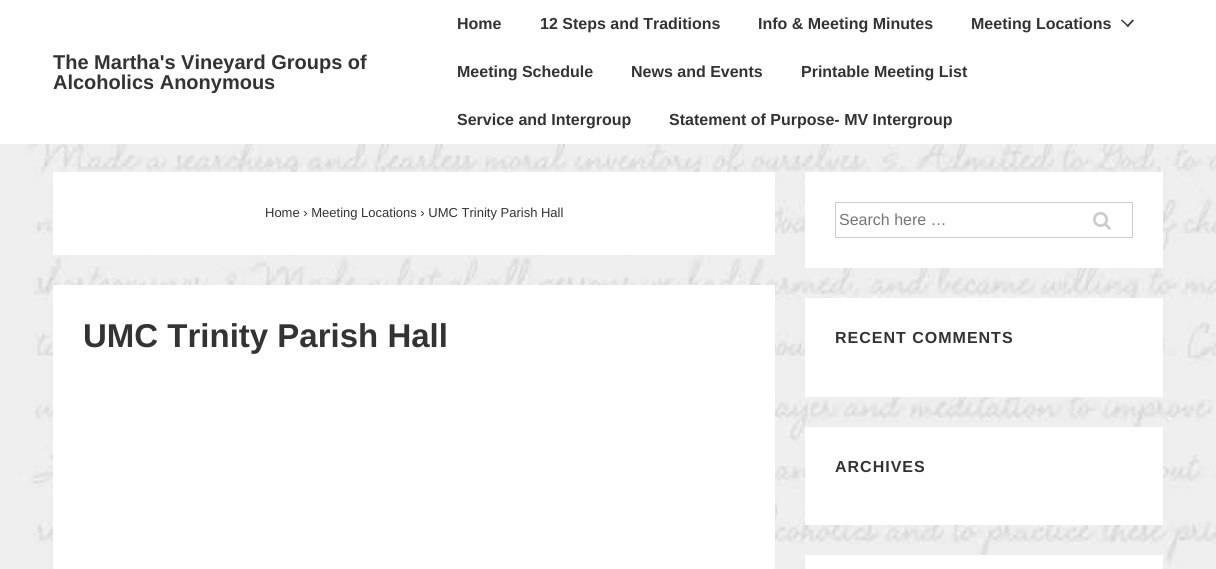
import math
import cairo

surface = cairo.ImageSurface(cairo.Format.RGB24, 1216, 569)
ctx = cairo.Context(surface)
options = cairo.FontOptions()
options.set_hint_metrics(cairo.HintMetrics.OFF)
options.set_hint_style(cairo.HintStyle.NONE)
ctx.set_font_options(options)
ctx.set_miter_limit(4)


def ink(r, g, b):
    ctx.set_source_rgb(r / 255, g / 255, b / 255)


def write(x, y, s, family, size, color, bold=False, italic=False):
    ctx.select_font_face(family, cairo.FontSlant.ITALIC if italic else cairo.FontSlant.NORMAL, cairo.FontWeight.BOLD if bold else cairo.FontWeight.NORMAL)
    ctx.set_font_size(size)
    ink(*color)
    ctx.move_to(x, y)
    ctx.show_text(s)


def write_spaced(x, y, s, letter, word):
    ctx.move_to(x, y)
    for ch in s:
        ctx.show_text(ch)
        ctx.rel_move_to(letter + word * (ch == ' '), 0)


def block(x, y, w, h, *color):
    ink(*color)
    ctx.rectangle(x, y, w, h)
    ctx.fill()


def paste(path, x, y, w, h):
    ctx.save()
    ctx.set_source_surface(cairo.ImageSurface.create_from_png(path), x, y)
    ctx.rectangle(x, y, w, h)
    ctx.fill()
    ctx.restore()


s1 = dict(family="Liberation Sans", size=20, color=(51, 51, 51), bold=True)
s2 = dict(family="Liberation Sans", size=16, color=(51, 51, 51), bold=True)
s3 = dict(family="Liberation Sans", size=13, color=(51, 51, 51))
s4 = dict(family="Liberation Sans", size=33, color=(51, 51, 51), bold=True)
s5 = dict(family="Liberation Sans", size=16, color=(117, 117, 117))

ink(255, 255, 255)
ctx.paint()
paste("pic1.png", 0, 144, 1216, 425)
write(53, 69, "The Martha's Vineyard Groups of", **s1)
write(53, 89, "Alcoholics Anonymous", **s1)
write(457, 29, "Home", **s2)
write(540, 29, "12 Steps and Traditions", **s2)
write(758, 29, "Info & Meeting Minutes", **s2)
write(971, 29, "Meeting Locations", **s2)
ctx.new_path()
ctx.move_to(1121, 20.5)
ctx.line_to(1122, 19.5)
ctx.line_to(1129, 26)
ctx.line_to(1128, 27)
ctx.close_path()
ctx.fill()
ctx.new_path()
ctx.move_to(1126.5, 26)
ctx.line_to(1132.5, 19.5)
ctx.line_to(1134, 20.5)
ctx.line_to(1128, 27)
ctx.close_path()
ctx.fill()
write(457, 77, "Meeting Schedule", **s2)
write(631, 77, "News and Events", **s2)
write(801, 77, "Printable Meeting List", **s2)
write(457, 125, "Service and Intergroup", **s2)
write(669, 125, "Statement of Purpose- MV Intergroup", **s2)
block(53, 172, 722, 83, 255, 255, 255)
write(265, 217, "Home › Meeting Locations › UMC Trinity Parish Hall", **s3)
block(53, 285, 722, 284, 255, 255, 255)
write(83, 347, "UMC Trinity Parish Hall", **s4)
block(805, 172, 358, 96, 255, 255, 255)
ctx.rectangle(835.5, 202.5, 297, 35)
ink(204, 204, 204)
ctx.set_line_width(1)
ctx.stroke()
write(839, 225, "Search here …", **s5)
paste("pic2.png", 1093, 212, 18, 18)
block(805, 298, 358, 99, 255, 255, 255)
ctx.select_font_face("Liberation Sans", cairo.FontSlant.NORMAL, cairo.FontWeight.BOLD)
ink(51, 51, 51)
write_spaced(835, 343, "RECENT COMMENTS", 1, 0)
block(805, 427, 358, 98, 255, 255, 255)
ink(51, 51, 51)
write_spaced(835, 472, "ARCHIVES", 1, 0)
block(805, 555, 358, 14, 255, 255, 255)
surface.write_to_png("screenshot.png")
